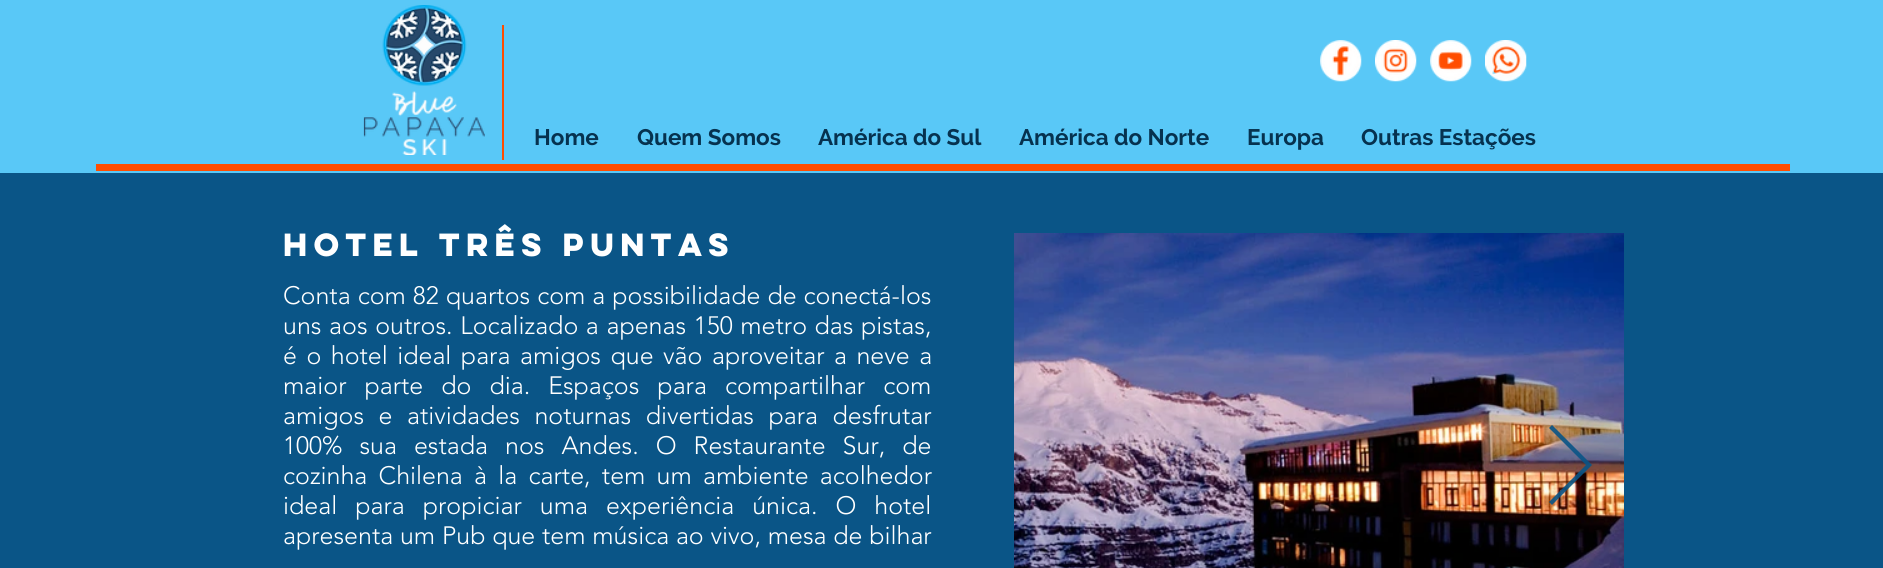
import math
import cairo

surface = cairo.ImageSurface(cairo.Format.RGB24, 1883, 568)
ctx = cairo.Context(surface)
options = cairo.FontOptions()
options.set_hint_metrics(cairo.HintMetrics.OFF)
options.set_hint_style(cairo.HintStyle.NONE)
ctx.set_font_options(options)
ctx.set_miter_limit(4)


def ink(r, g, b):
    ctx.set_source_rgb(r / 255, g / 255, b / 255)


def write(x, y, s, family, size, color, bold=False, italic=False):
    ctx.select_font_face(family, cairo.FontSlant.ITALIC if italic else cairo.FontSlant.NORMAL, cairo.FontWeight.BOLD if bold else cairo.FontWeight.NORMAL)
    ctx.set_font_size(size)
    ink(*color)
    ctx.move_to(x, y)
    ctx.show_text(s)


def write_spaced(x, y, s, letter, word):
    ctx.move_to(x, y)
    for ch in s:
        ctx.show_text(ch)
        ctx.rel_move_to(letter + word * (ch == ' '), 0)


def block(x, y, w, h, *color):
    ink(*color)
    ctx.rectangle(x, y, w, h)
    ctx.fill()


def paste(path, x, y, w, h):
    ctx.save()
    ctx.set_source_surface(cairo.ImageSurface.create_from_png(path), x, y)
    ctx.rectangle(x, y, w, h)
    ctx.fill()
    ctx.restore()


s1 = dict(family="Raleway", size=22.5, color=(6, 50, 79), bold=True)
s2 = dict(family="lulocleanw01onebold", size=28.75, color=(255, 255, 255), bold=True)

ink(10, 85, 135)
ctx.paint()
block(0, 0, 1883, 173, 89, 200, 247)
paste("pic1.png", 363, 5, 122, 150)
block(502, 25, 2, 135, 255, 77, 0)
paste("pic6.png", 1330, 43, 29, 35)
paste("pic2.png", 1320, 40, 42, 42)
paste("pic7.png", 1381, 43, 30, 35)
paste("pic3.png", 1375, 40, 42, 42)
paste("pic8.png", 1436, 45, 30, 34)
paste("pic4.png", 1430, 40, 42, 42)
paste("pic9.png", 1490, 43, 32, 35)
paste("pic5.png", 1485, 40, 42, 42)
write(534, 145, "Home", **s1)
write(637, 145, "Quem Somos", **s1)
write(818, 145, "América do Sul", **s1)
write(1019, 145, "América do Norte", **s1)
write(1247, 145, "Europa", **s1)
write(1361, 145, "Outras Estações", **s1)
block(96, 164, 1694, 7, 255, 77, 0)
write(283, 256, "HOTEL TRÊS PUNTAS", **s2)
paste("pic10.png", 1014, 233, 610, 335)
ctx.set_source_rgba(0.039, 0.333, 0.529, 0.9)
ctx.new_path()
ctx.move_to(1549, 428)
ctx.line_to(1552, 425)
ctx.line_to(1592, 465)
ctx.line_to(1552, 505)
ctx.line_to(1549, 502)
ctx.line_to(1586, 465)
ctx.close_path()
ctx.fill()
ctx.select_font_face("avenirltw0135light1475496 Light")
ctx.set_font_size(25)
ink(255, 255, 255)
write_spaced(283, 304, "Conta com 82 quartos com a possibilidade de conectá-los", 0, 0.5)
write_spaced(283, 334, "uns aos outros. Localizado a apenas 150 metro das pistas,", 0, 1.1)
write_spaced(283, 364, "é o hotel ideal para amigos que vão aproveitar a neve a", 0, 3)
write_spaced(283, 394, "maior parte do dia. Espaços para compartilhar com", 0, 11.5)
write_spaced(283, 424, "amigos e atividades noturnas divertidas para desfrutar", 0, 8)
write_spaced(283, 454, "100% sua estada nos Andes. O Restaurante Sur, de", 0, 10.5)
write_spaced(283, 484, "cozinha Chilena à la carte, tem um ambiente acolhedor", 0, 4.75)
write_spaced(283, 514, "ideal para propiciar uma experiência única. O hotel", 0, 11.5)
write_spaced(283, 544, "apresenta um Pub que tem música ao vivo, mesa de bilhar", 0, 0.25)
surface.write_to_png("screenshot.png")
